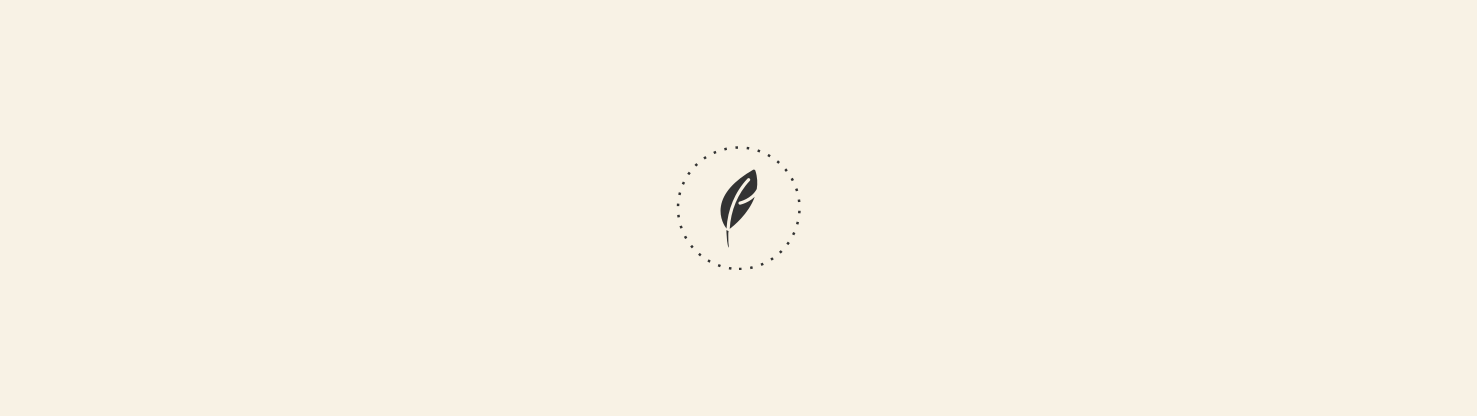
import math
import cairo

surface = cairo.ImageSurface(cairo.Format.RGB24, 1477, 416)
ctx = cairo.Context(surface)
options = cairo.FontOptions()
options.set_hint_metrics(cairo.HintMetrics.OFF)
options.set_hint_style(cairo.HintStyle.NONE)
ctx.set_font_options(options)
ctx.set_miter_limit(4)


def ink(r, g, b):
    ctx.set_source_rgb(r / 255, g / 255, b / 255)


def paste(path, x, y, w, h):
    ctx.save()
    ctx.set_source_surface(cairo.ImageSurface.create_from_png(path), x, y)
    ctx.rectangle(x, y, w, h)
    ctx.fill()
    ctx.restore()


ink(248, 242, 229)
ctx.paint()
ctx.save()
ctx.rectangle(676, 146, 125, 124)
ctx.clip()
ctx.new_path()
ctx.move_to(739, 269)
ctx.curve_to(772, 269, 799.5, 241.5, 799.5, 208)
ctx.curve_to(799.5, 174.5, 772, 147.5, 739, 147.5)
ctx.curve_to(705.5, 147.5, 678, 174.5, 678, 208)
ctx.curve_to(678, 241.5, 705.5, 269, 739, 269)
ctx.close_path()
ink(51, 51, 51)
ctx.set_line_width(2.5)
ctx.set_dash([2.5, 8.75])
ctx.stroke()
ctx.restore()
paste("pic1.png", 720, 169, 38, 79)
surface.write_to_png("screenshot.png")
